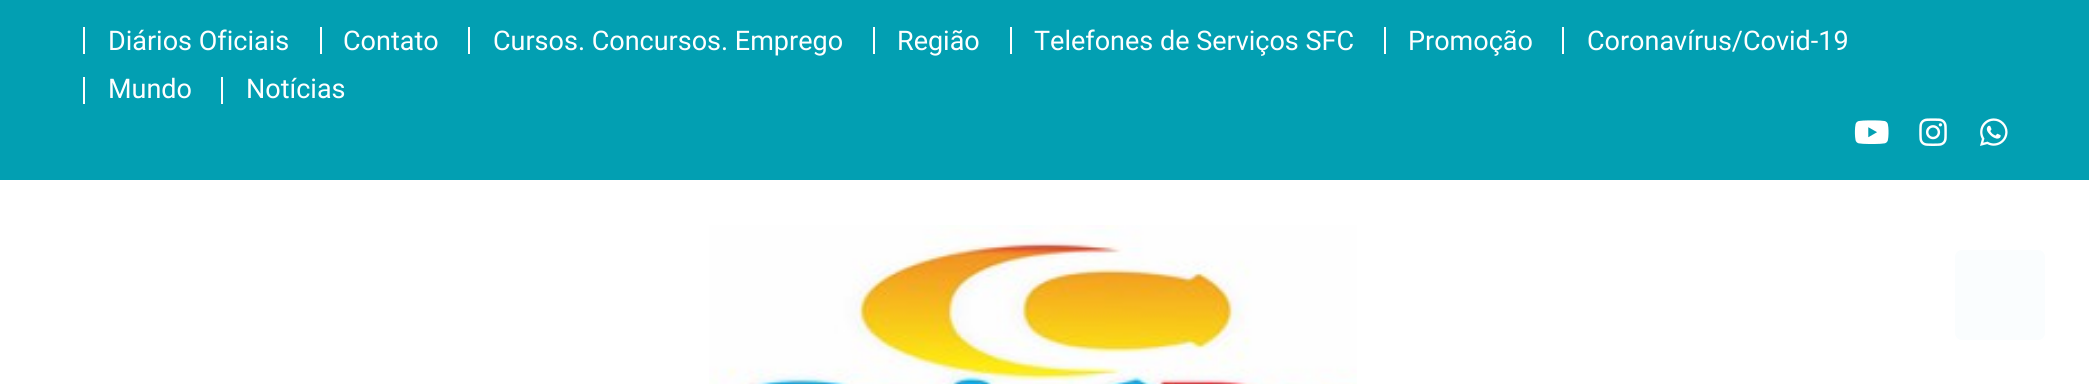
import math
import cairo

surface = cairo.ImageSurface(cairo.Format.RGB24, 2089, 384)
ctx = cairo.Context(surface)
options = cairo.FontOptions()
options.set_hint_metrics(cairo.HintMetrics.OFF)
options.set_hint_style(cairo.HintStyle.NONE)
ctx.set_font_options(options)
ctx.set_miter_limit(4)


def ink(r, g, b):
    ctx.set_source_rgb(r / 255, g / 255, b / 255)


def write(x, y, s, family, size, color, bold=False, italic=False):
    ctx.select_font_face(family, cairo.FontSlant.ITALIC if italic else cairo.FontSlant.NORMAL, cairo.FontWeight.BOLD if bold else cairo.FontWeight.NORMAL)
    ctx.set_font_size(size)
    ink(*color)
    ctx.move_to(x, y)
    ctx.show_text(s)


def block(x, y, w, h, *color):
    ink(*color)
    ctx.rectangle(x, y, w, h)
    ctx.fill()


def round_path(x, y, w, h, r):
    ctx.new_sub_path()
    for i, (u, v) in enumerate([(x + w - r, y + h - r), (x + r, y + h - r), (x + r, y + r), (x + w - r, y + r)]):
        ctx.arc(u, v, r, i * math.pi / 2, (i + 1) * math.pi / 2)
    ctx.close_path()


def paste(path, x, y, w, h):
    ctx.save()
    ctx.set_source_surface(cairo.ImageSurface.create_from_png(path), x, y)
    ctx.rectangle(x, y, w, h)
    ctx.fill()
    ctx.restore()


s1 = dict(family="Roboto", size=27, color=(255, 255, 255))

ink(255, 255, 255)
ctx.paint()
block(0, 0, 2089, 180, 2, 159, 178)
block(83, 27, 2, 27, 255, 255, 255)
write(108, 50, "Diários Oficiais", **s1)
block(320, 27, 2, 27, 255, 255, 255)
write(343, 50, "Contato", **s1)
block(468, 27, 2, 27, 255, 255, 255)
write(493, 50, "Cursos. Concursos. Emprego", **s1)
block(873, 27, 2, 27, 255, 255, 255)
write(897, 50, "Região", **s1)
block(1010, 27, 2, 27, 255, 255, 255)
write(1034, 50, "Telefones de Serviços SFC", **s1)
block(1384, 27, 2, 27, 255, 255, 255)
write(1408, 50, "Promoção", **s1)
block(1562, 27, 2, 27, 255, 255, 255)
write(1587, 50, "Coronavírus/Covid-19", **s1)
block(83, 77, 2, 27, 255, 255, 255)
write(108, 98, "Mundo", **s1)
block(221, 77, 2, 27, 255, 255, 255)
write(246, 98, "Notícias", **s1)
paste("pic1.png", 1854, 120, 35, 24)
paste("pic2.png", 1919, 118, 28, 28)
paste("pic3.png", 1980, 118, 28, 28)
paste("pic4.png", 709, 225, 648, 159)
ink(250, 253, 254)
round_path(1955, 250, 90, 90, 7)
ctx.fill()
surface.write_to_png("screenshot.png")
